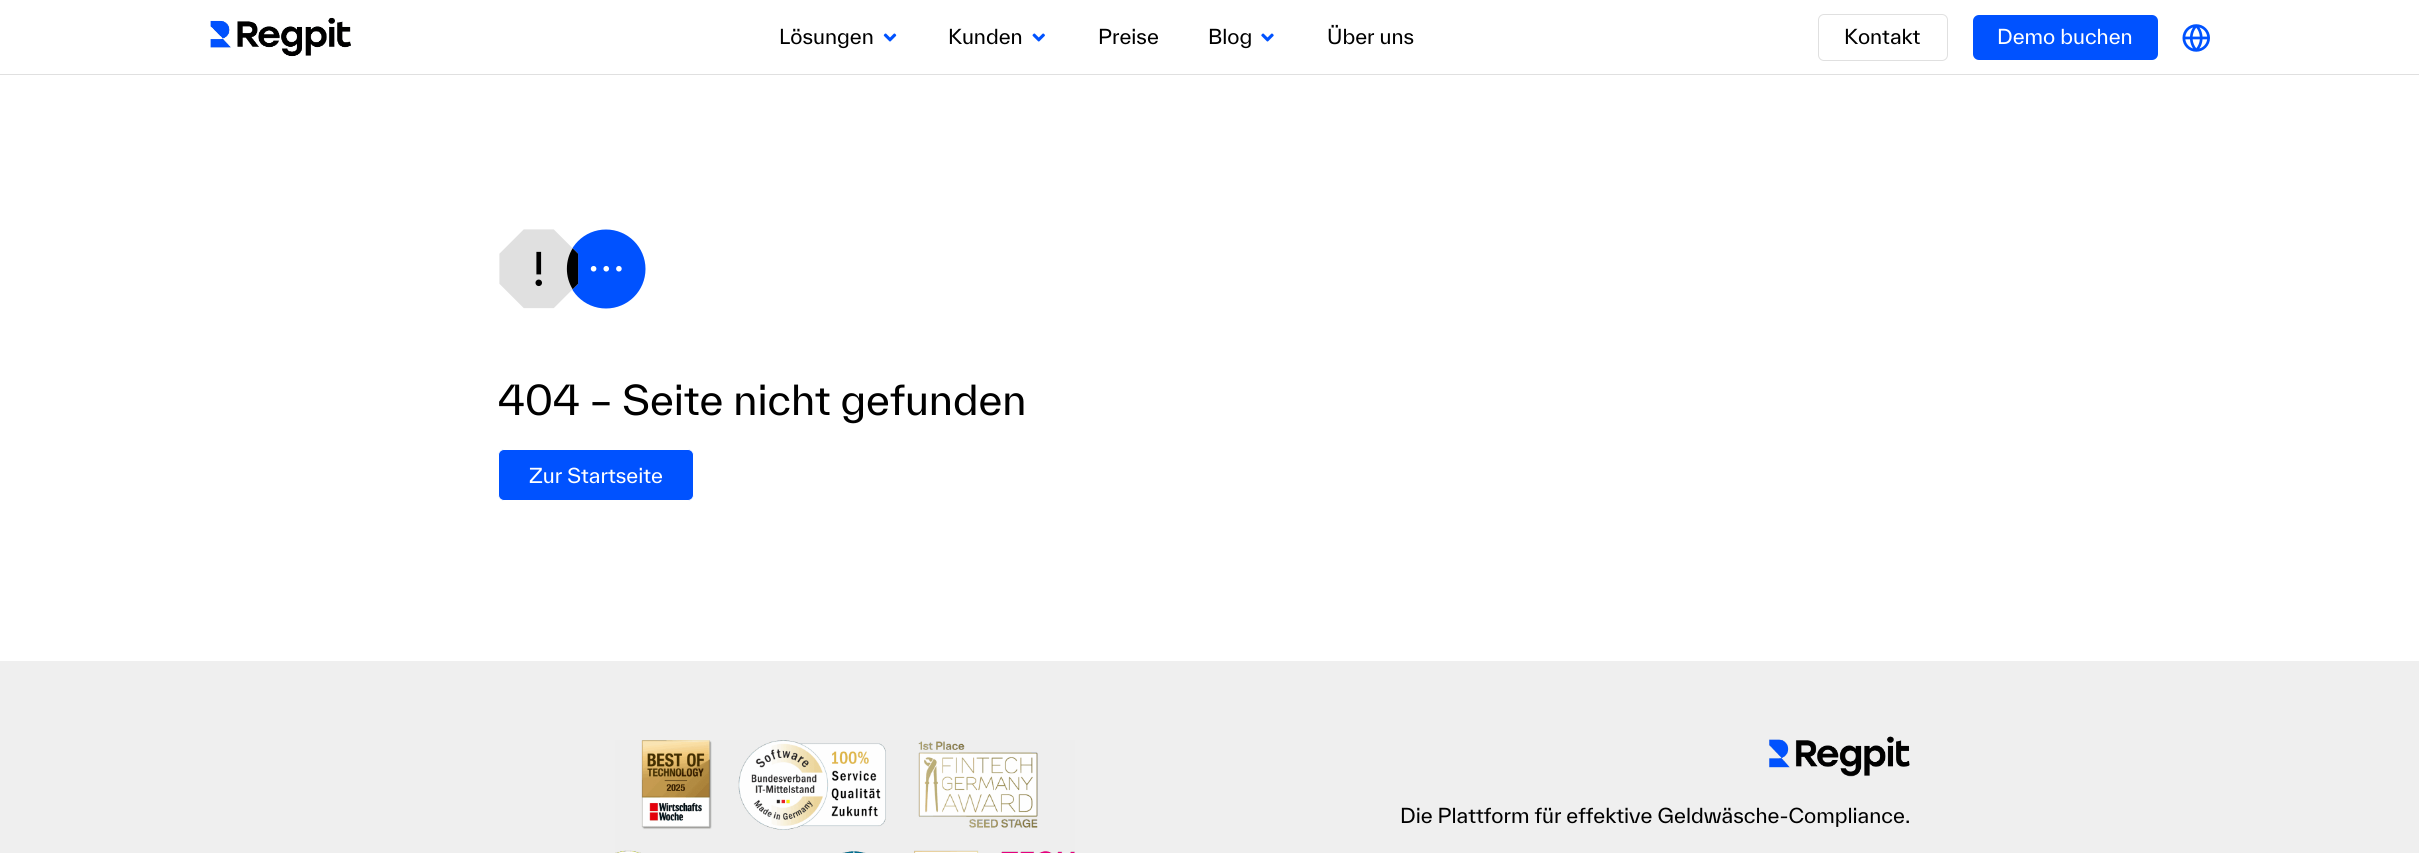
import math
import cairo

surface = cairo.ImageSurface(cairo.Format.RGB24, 2419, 853)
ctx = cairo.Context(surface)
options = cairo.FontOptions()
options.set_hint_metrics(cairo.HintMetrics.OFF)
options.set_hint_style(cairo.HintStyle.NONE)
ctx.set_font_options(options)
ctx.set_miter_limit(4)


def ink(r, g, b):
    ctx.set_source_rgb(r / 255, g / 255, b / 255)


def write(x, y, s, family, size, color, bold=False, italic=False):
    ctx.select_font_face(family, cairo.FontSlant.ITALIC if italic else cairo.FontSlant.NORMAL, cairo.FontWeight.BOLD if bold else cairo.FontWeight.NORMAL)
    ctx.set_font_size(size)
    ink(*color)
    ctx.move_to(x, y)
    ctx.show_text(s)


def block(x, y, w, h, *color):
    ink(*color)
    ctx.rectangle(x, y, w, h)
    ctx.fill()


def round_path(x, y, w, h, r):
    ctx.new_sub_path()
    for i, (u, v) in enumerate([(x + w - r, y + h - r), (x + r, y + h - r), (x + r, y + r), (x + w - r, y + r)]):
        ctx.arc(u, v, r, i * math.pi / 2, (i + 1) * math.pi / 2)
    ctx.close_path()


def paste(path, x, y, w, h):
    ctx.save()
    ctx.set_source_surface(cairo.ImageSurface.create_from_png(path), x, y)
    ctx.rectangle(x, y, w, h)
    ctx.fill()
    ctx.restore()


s1 = dict(family="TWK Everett", size=20, color=(0, 0, 0))
s2 = dict(family="TWK Everett", size=20, color=(255, 255, 255))
s3 = dict(family="TWK Everett", size=40, color=(0, 0, 0))

ink(255, 255, 255)
ctx.paint()
block(0, 74, 2419, 1, 224, 224, 224)
paste("pic1.png", 210, 17, 141, 40)
write(779, 44, "Lösungen", **s1)
paste("pic2.png", 883, 33, 14, 9)
write(948, 44, "Kunden", **s1)
paste("pic3.png", 1032, 33, 13, 9)
write(1098, 44, "Preise", **s1)
write(1208, 44, "Blog", **s1)
paste("pic4.png", 1261, 33, 13, 9)
write(1327, 44, "Über uns", **s1)
round_path(1818.5, 14.5, 129, 46, 5.5)
ink(224, 224, 224)
ctx.set_line_width(1)
ctx.stroke()
write(1844, 44, "Kontakt", **s1)
ink(0, 82, 255)
round_path(1973, 15, 185, 45, 6)
ctx.fill()
write(1997, 44, "Demo buchen", **s2)
paste("pic5.png", 2182, 24, 28, 28)
paste("pic6.png", 499, 229, 147, 80)
write(498, 415, "404 – Seite nicht gefunden", **s3)
ink(0, 82, 255)
round_path(498.5, 449.5, 195, 51, 5.5)
ctx.fill_preserve()
ink(255, 255, 255)
ctx.stroke()
write(529, 483, "Zur Startseite", **s2)
block(0, 661, 2419, 192, 239, 239, 239)
paste("pic7.png", 615, 740, 460, 113)
paste("pic8.png", 1769, 736, 141, 41)
write(1400, 823, "Die Plattform für effektive Geldwäsche-Compliance.", **s1)
surface.write_to_png("screenshot.png")
